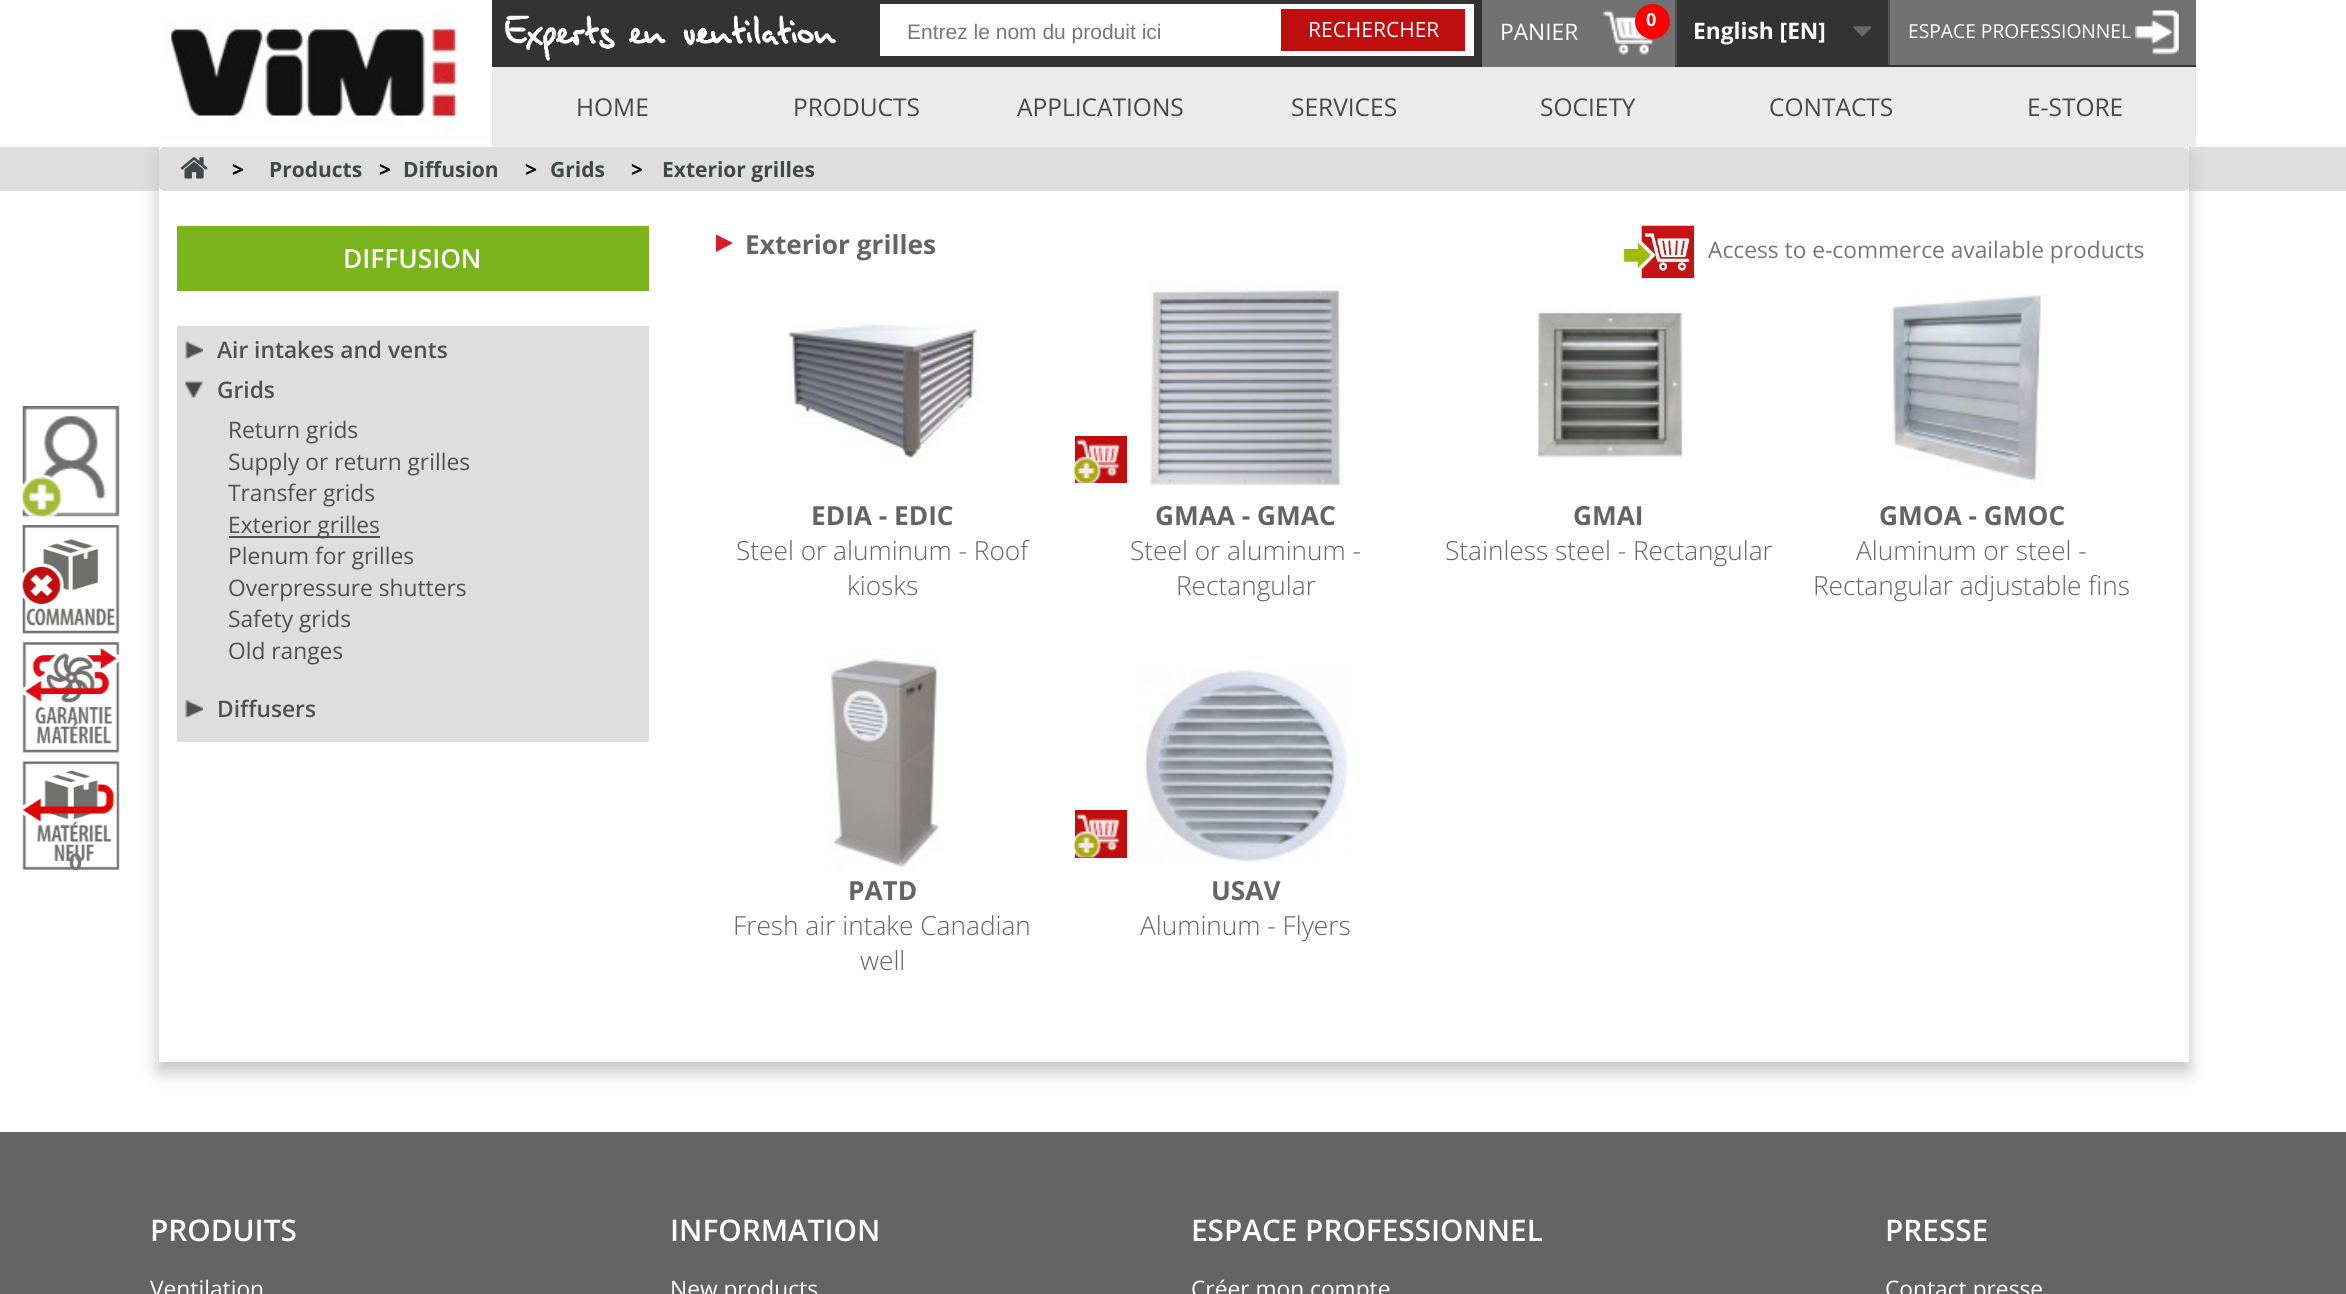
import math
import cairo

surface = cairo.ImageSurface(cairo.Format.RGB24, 2346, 1294)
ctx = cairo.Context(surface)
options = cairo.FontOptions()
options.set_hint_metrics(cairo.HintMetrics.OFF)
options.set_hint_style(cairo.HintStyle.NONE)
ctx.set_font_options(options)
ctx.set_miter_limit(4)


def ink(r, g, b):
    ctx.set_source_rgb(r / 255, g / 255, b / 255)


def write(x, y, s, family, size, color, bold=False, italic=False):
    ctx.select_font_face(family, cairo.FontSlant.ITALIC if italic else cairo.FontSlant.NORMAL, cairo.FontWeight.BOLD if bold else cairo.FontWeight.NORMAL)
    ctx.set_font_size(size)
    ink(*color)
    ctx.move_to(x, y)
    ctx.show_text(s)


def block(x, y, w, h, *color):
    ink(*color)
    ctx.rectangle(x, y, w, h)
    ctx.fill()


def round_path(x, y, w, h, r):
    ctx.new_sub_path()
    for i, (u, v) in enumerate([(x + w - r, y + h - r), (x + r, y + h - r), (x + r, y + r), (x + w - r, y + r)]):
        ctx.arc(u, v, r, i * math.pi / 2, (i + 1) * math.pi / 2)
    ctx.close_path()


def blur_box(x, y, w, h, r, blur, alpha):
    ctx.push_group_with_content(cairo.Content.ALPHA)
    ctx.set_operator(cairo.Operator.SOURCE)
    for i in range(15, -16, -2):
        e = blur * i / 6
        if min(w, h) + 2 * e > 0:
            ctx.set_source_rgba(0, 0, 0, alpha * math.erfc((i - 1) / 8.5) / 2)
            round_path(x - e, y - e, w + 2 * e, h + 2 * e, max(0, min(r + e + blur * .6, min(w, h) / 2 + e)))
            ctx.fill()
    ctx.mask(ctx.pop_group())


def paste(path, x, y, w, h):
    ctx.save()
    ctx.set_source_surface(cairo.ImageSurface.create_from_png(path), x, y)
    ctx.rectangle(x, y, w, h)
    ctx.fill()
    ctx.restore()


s1 = dict(family="Liberation Sans", size=21, color=(119, 119, 119))
s2 = dict(family="Open Sans", size=21, color=(255, 255, 255))
s3 = dict(family="Open Sans", size=18, color=(255, 255, 255), bold=True)
s4 = dict(family="Open Sans", size=22.75, color=(255, 255, 255))
s5 = dict(family="Open Sans", size=22.75, color=(255, 255, 255), bold=True)
s6 = dict(family="Open Sans", size=19.25, color=(255, 255, 255))
s7 = dict(family="Open Sans", size=24.5, color=(72, 72, 72))
s8 = dict(family="Open Sans", size=22.75, color=(119, 119, 119), bold=True)
s9 = dict(family="Open Sans", size=21, color=(0, 0, 0), bold=True)
s10 = dict(family="Open Sans", size=21, color=(65, 72, 71), bold=True)
s11 = dict(family="Open Sans SemiBold", size=26.25, color=(255, 255, 255))
s12 = dict(family="Open Sans SemiBold", size=22.75, color=(80, 80, 80))
s13 = dict(family="Open Sans", size=22.75, color=(80, 80, 80))
s14 = dict(family="Open Sans", size=26.25, color=(100, 100, 100), bold=True)
s15 = dict(family="Open Sans", size=22.75, color=(119, 119, 119))
s16 = dict(family="Open Sans Light", size=26.25, color=(100, 100, 100))
s17 = dict(family="Open Sans SemiBold", size=29.75, color=(255, 255, 255))

ink(255, 255, 255)
ctx.paint()
block(0, 147, 2346, 44, 222, 222, 222)
ink(192, 192, 192)
blur_box(159, 156, 2030, 915, 0, 9, 1)
block(154, 140, 2040, 7, 255, 255, 255)
paste("pic1.png", 164, 9, 294, 124)
block(492, 0, 1704, 67, 51, 51, 51)
paste("pic2.png", 505, 15, 331, 46)
block(880, 4, 594, 52, 255, 255, 255)
write(907, 39, "Entrez le nom du produit ici", **s1)
block(1281, 9, 184, 42, 192, 13, 13)
write(1308, 37, "RECHERCHER", **s2)
block(1482, 0, 193, 67, 114, 114, 114)
paste("pic3.png", 1603, 10, 51, 45)
ink(255, 0, 0)
ctx.arc(1652.5, 21.5, 17.5, 0, 2 * math.pi)
ctx.fill()
write(1646, 26, "0", **s3)
write(1500, 40, "PANIER", **s4)
block(1675, 0, 2, 65, 81, 81, 81)
write(1693, 39, "English [EN]", **s5)
paste("pic4.png", 1853, 26, 19, 11)
block(1890, 0, 306, 65, 114, 114, 114)
block(1888, 0, 2, 65, 81, 81, 81)
write(1908, 38, "ESPACE PROFESSIONNEL", **s6)
paste("pic5.png", 2135, 10, 44, 45)
block(492, 67, 1704, 80, 235, 235, 235)
write(576, 116, "HOME", **s7)
write(793, 116, "PRODUCTS", **s7)
write(1017, 116, "APPLICATIONS", **s7)
write(1291, 116, "SERVICES", **s7)
write(1540, 116, "SOCIETY", **s7)
write(1769, 116, "CONTACTS", **s7)
write(2027, 116, "E-STORE", **s7)
paste("pic6.png", 22, 406, 98, 111)
paste("pic7.png", 22, 525, 98, 109)
paste("pic8.png", 22, 642, 98, 111)
paste("pic9.png", 22, 761, 98, 109)
write(69, 870, "0", **s8)
block(159, 147, 2030, 915, 255, 255, 255)
ink(222, 222, 222)
round_path(159, 147, 2030, 44, 5)
ctx.fill()
paste("pic10.png", 180, 157, 28, 22)
write(232, 177, ">", **s9)
write(269, 177, "Products", **s10)
write(379, 177, ">", **s9)
write(403, 177, "Diffusion", **s10)
write(525, 177, ">", **s9)
write(550, 177, "Grids", **s10)
write(631, 177, ">", **s9)
write(662, 177, "Exterior grilles", **s10)
block(177, 226, 472, 65, 122, 181, 29)
write(343, 268, "DIFFUSION", **s11)
block(177, 326, 472, 416, 222, 222, 222)
paste("pic11.png", 185, 341, 18, 18)
write(217, 358, "Air intakes and vents", **s12)
paste("pic12.png", 185, 381, 18, 18)
write(217, 398, "Grids", **s12)
write(228, 438, "Return grids", **s13)
write(228, 470, "Supply or return grilles", **s13)
write(228, 501, "Transfer grids", **s13)
block(229, 536, 151, 2, 80, 80, 80)
write(228, 533, "Exterior grilles", **s13)
write(228, 564, "Plenum for grilles", **s13)
write(228, 596, "Overpressure shutters", **s13)
write(228, 627, "Safety grids", **s13)
write(228, 659, "Old ranges", **s13)
paste("pic13.png", 185, 700, 18, 18)
write(217, 717, "Diffusers", **s12)
ink(216, 31, 37)
ctx.new_path()
ctx.move_to(716, 252)
ctx.line_to(716, 234.5)
ctx.line_to(733, 243)
ctx.close_path()
ctx.fill()
write(745, 254, "Exterior grilles", **s14)
paste("pic14.png", 1623, 225, 71, 54)
write(1708, 258, "Access to e-commerce available products", **s15)
paste("pic15.png", 788, 323, 195, 137)
write(811, 525, "EDIA - EDIC", **s14)
write(736, 560, "Steel or aluminum - Roof", **s16)
write(847, 595, "kiosks", **s16)
block(1075, 436, 52, 47, 192, 13, 13)
paste("pic16.png", 1074, 439, 46, 44)
paste("pic17.png", 1149, 280, 195, 208)
write(1155, 525, "GMAA - GMAC", **s14)
write(1130, 560, "Steel or aluminum -", **s16)
write(1176, 595, "Rectangular", **s16)
paste("pic18.png", 1537, 278, 157, 182)
write(1573, 525, "GMAI", **s14)
write(1445, 560, "Stainless steel - Rectangular", **s16)
paste("pic19.png", 1890, 294, 154, 194)
write(1879, 525, "GMOA - GMOC", **s14)
write(1856, 560, "Aluminum or steel -", **s16)
write(1813, 595, "Rectangular adjustable fins", **s16)
paste("pic20.png", 829, 654, 113, 217)
write(848, 900, "PATD", **s14)
write(733, 935, "Fresh air intake Canadian", **s16)
write(860, 970, "well", **s16)
block(1075, 810, 52, 48, 192, 13, 13)
paste("pic21.png", 1074, 813, 46, 45)
paste("pic22.png", 1136, 668, 217, 195)
write(1211, 900, "USAV", **s14)
write(1140, 935, "Aluminum - Flyers", **s16)
block(0, 1132, 2346, 162, 100, 100, 100)
write(150, 1241, "PRODUITS", **s17)
write(150, 1297, "Ventilation", **s4)
write(670, 1241, "INFORMATION", **s17)
write(670, 1297, "New products", **s4)
write(1191, 1241, "ESPACE PROFESSIONNEL", **s17)
write(1191, 1297, "Créer mon compte", **s4)
write(1885, 1241, "PRESSE", **s17)
write(1885, 1297, "Contact presse", **s4)
surface.write_to_png("screenshot.png")
